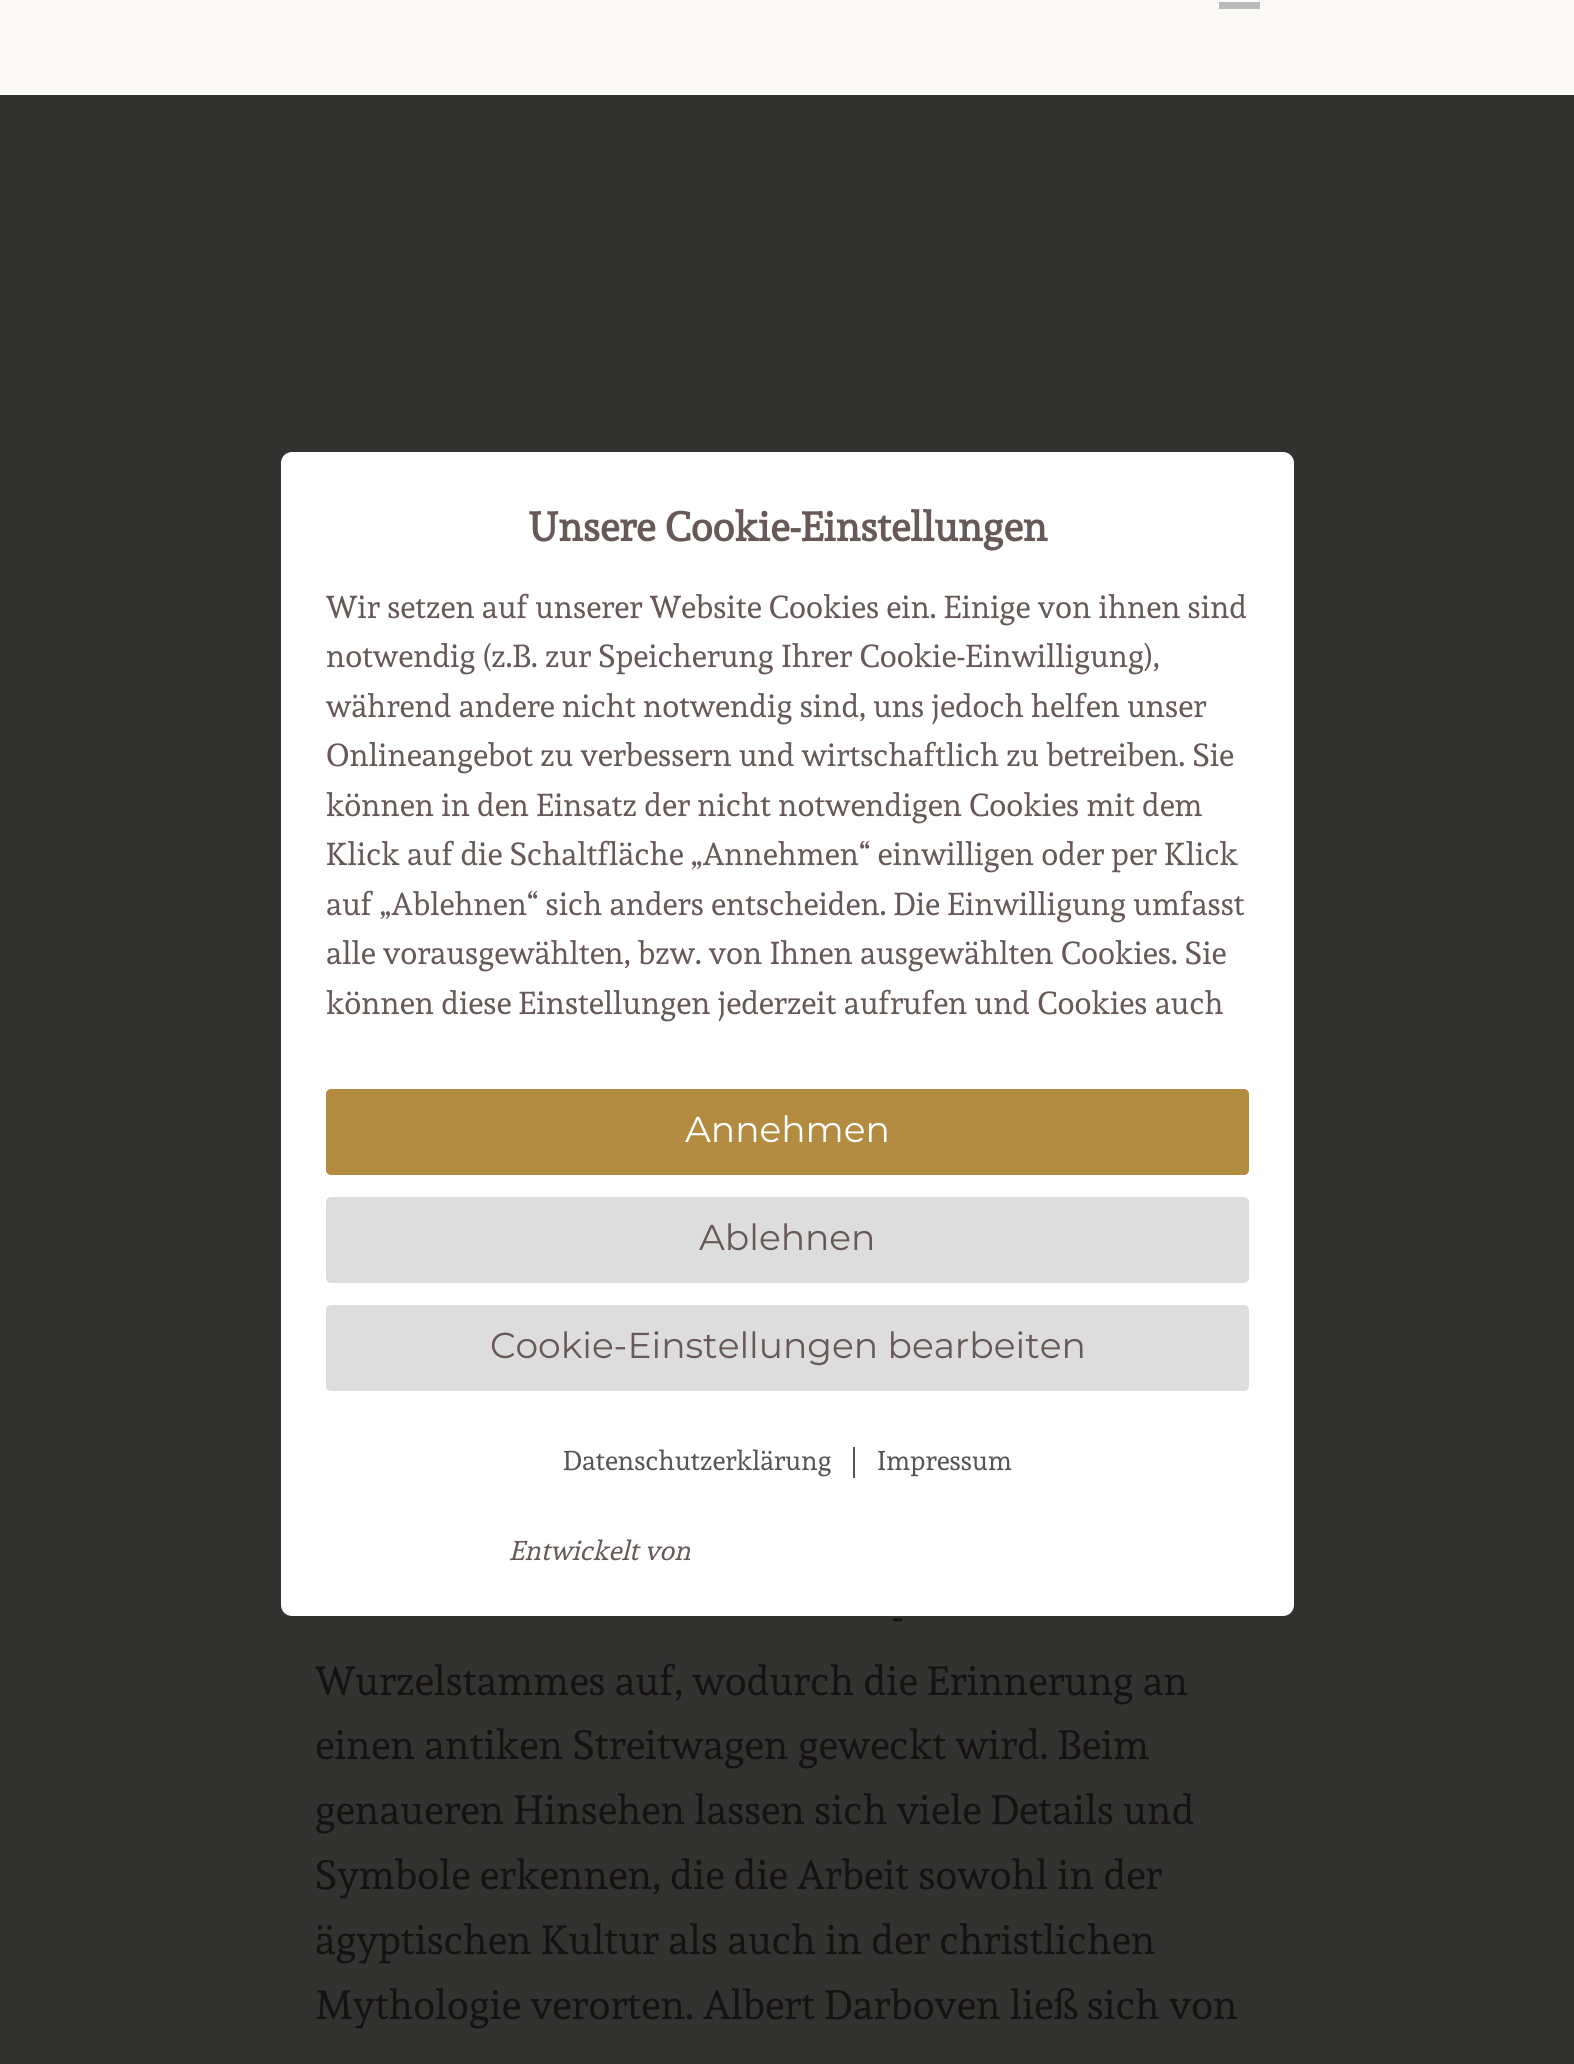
import math
import cairo

surface = cairo.ImageSurface(cairo.Format.RGB24, 1574, 2064)
ctx = cairo.Context(surface)
options = cairo.FontOptions()
options.set_hint_metrics(cairo.HintMetrics.OFF)
options.set_hint_style(cairo.HintStyle.NONE)
ctx.set_font_options(options)
ctx.set_miter_limit(4)


def ink(r, g, b):
    ctx.set_source_rgb(r / 255, g / 255, b / 255)


def write(x, y, s, family, size, color, bold=False, italic=False):
    ctx.select_font_face(family, cairo.FontSlant.ITALIC if italic else cairo.FontSlant.NORMAL, cairo.FontWeight.BOLD if bold else cairo.FontWeight.NORMAL)
    ctx.set_font_size(size)
    ink(*color)
    ctx.move_to(x, y)
    ctx.show_text(s)


def block(x, y, w, h, *color):
    ink(*color)
    ctx.rectangle(x, y, w, h)
    ctx.fill()


def round_path(x, y, w, h, r):
    ctx.new_sub_path()
    for i, (u, v) in enumerate([(x + w - r, y + h - r), (x + r, y + h - r), (x + r, y + r), (x + w - r, y + r)]):
        ctx.arc(u, v, r, i * math.pi / 2, (i + 1) * math.pi / 2)
    ctx.close_path()


s1 = dict(family="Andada", size=40.5, color=(103, 89, 87), bold=True)
s2 = dict(family="Andada", size=31.5, color=(103, 89, 87))
s3 = dict(family="Montserrat", size=36, color=(255, 255, 255))
s4 = dict(family="Montserrat", size=36, color=(103, 89, 87))
s5 = dict(family="Andada", size=27, color=(85, 85, 85))
s6 = dict(family="Andada", size=27, color=(103, 89, 87), italic=True)
s7 = dict(family="Andada", size=40.5, color=(21, 18, 17))

ink(50, 50, 49)
ctx.paint()
ink(255, 255, 255)
round_path(281, 452, 1013, 1164, 11)
ctx.fill()
write(528, 541, "Unsere Cookie-Einstellungen", **s1)
write(326, 618, "Wir setzen auf unserer Website Cookies ein. Einige von ihnen sind", **s2)
write(326, 667, "notwendig (z.B. zur Speicherung Ihrer Cookie-Einwilligung),", **s2)
write(326, 717, "während andere nicht notwendig sind, uns jedoch helfen unser", **s2)
write(326, 766, "Onlineangebot zu verbessern und wirtschaftlich zu betreiben. Sie", **s2)
write(326, 816, "können in den Einsatz der nicht notwendigen Cookies mit dem", **s2)
write(326, 865, "Klick auf die Schaltfläche „Annehmen“ einwilligen oder per Klick", **s2)
write(326, 915, "auf „Ablehnen“ sich anders entscheiden. Die Einwilligung umfasst", **s2)
write(326, 964, "alle vorausgewählten, bzw. von Ihnen ausgewählten Cookies. Sie", **s2)
write(326, 1014, "können diese Einstellungen jederzeit aufrufen und Cookies auch", **s2)
ink(179, 140, 65)
round_path(326, 1089, 923, 86, 5)
ctx.fill()
write(685, 1142, "Annehmen", **s3)
ink(221, 221, 221)
round_path(326, 1197, 923, 86, 5)
ctx.fill()
write(699, 1250, "Ablehnen", **s4)
ink(221, 221, 221)
round_path(326, 1305, 923, 86, 5)
ctx.fill()
write(490, 1358, "Cookie-Einstellungen bearbeiten", **s4)
write(563, 1470, "Datenschutzerklärung", **s5)
block(853, 1447, 2, 31, 85, 85, 85)
write(877, 1470, "Impressum", **s5)
write(509, 1560, "Entwickelt von", **s6)
block(0, 0, 1574, 95, 252, 250, 247)
block(1219, 2, 41, 7, 187, 187, 187)
write(892, 1630, "-", **s7)
write(315, 1695, "Wurzelstammes auf, wodurch die Erinnerung an", **s7)
write(315, 1759, "einen antiken Streitwagen geweckt wird. Beim", **s7)
write(315, 1824, "genaueren Hinsehen lassen sich viele Details und", **s7)
write(315, 1889, "Symbole erkennen, die die Arbeit sowohl in der", **s7)
write(315, 1954, "ägyptischen Kultur als auch in der christlichen", **s7)
write(315, 2019, "Mythologie verorten. Albert Darboven ließ sich von", **s7)
surface.write_to_png("screenshot.png")
